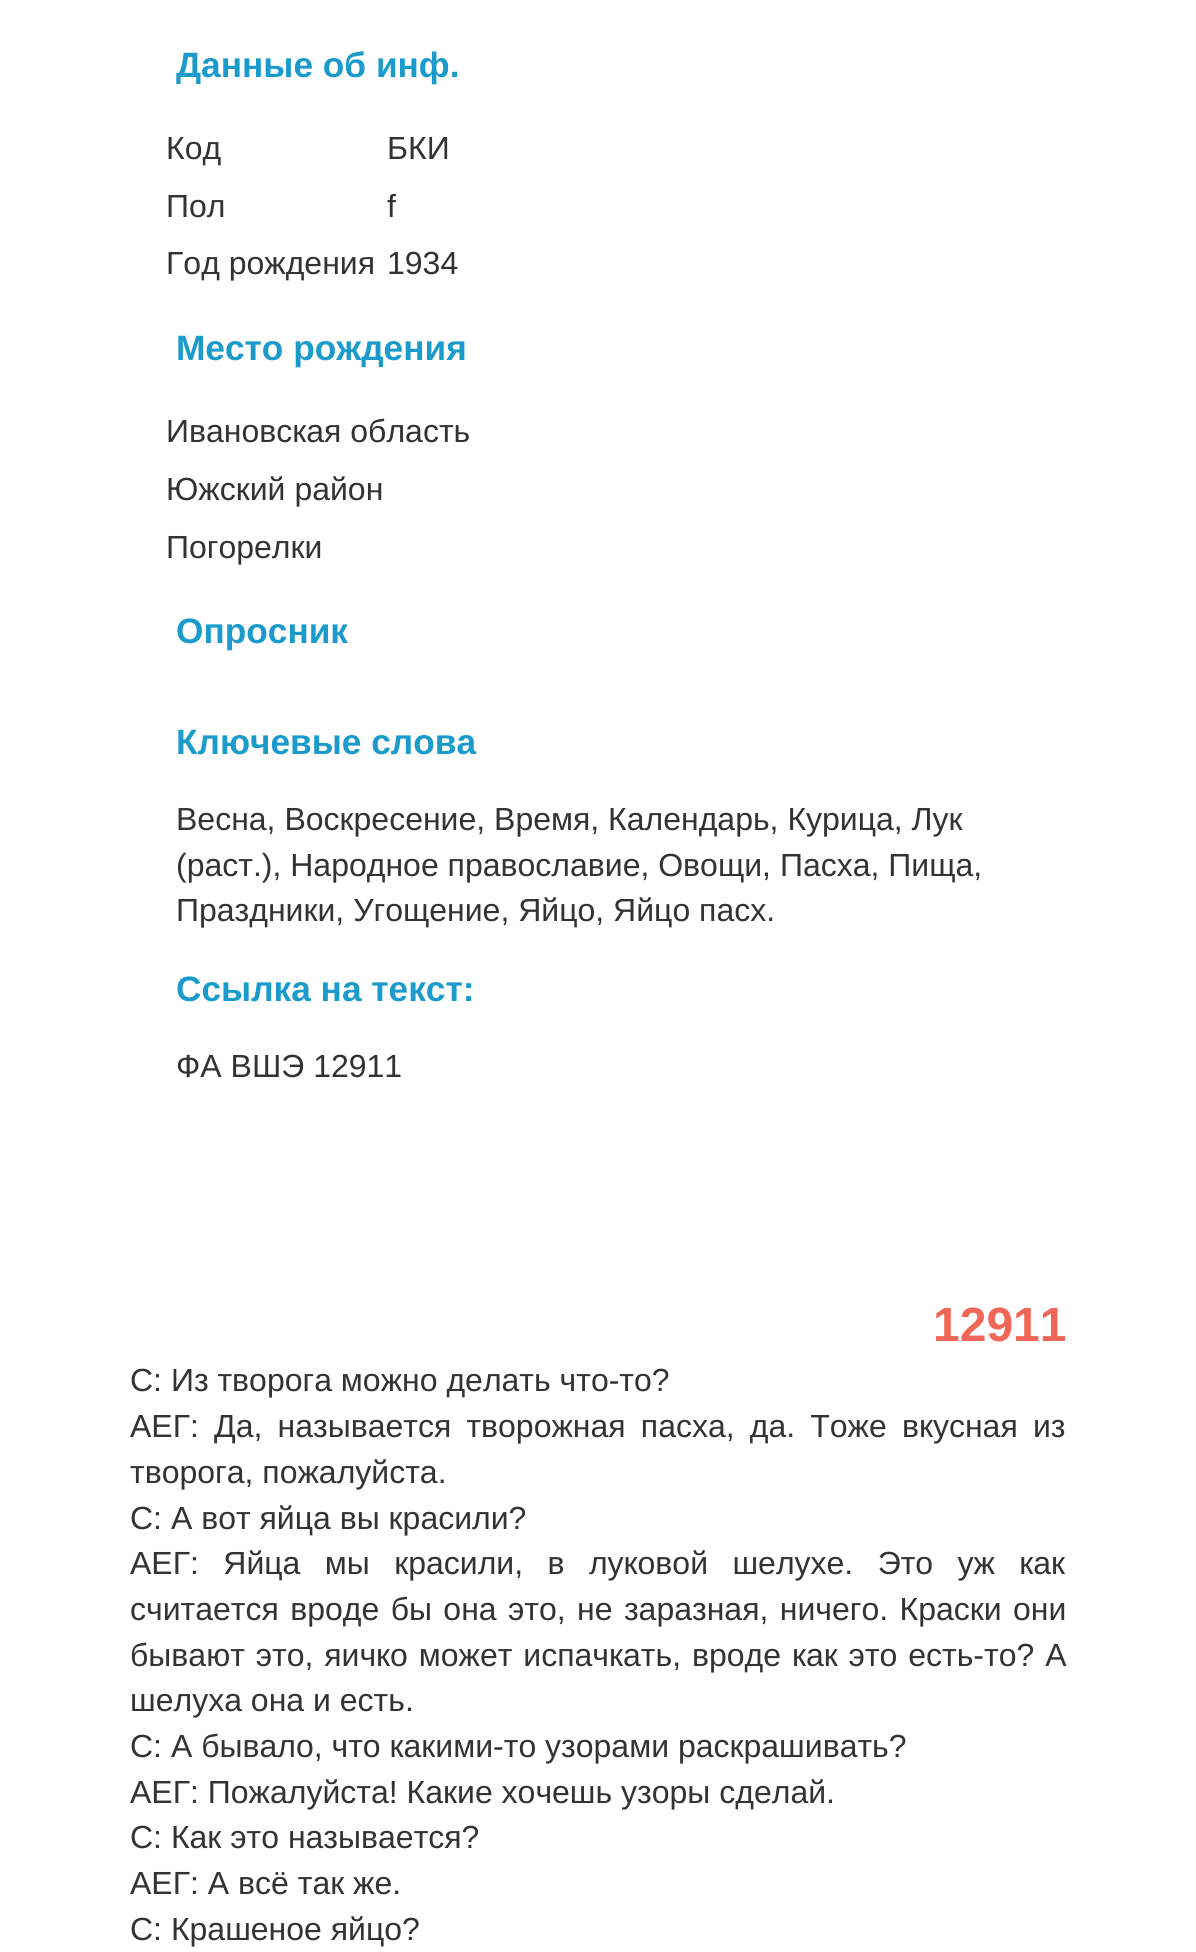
import math
import cairo

surface = cairo.ImageSurface(cairo.Format.RGB24, 1196, 1952)
ctx = cairo.Context(surface)
options = cairo.FontOptions()
options.set_hint_metrics(cairo.HintMetrics.OFF)
options.set_hint_style(cairo.HintStyle.NONE)
ctx.set_font_options(options)
ctx.set_miter_limit(4)


def ink(r, g, b):
    ctx.set_source_rgb(r / 255, g / 255, b / 255)


def write(x, y, s, family, size, color, bold=False, italic=False):
    ctx.select_font_face(family, cairo.FontSlant.ITALIC if italic else cairo.FontSlant.NORMAL, cairo.FontWeight.BOLD if bold else cairo.FontWeight.NORMAL)
    ctx.set_font_size(size)
    ink(*color)
    ctx.move_to(x, y)
    ctx.show_text(s)


def write_spaced(x, y, s, letter, word):
    ctx.move_to(x, y)
    for ch in s:
        ctx.show_text(ch)
        ctx.rel_move_to(letter + word * (ch == ' '), 0)


s1 = dict(family="Liberation Sans", size=35.25, color=(26, 155, 203), bold=True)
s2 = dict(family="Liberation Sans", size=32, color=(51, 51, 51))
s3 = dict(family="Liberation Sans", size=48, color=(241, 103, 87), bold=True)

ink(255, 255, 255)
ctx.paint()
write(176, 77, "Данные об инф.", **s1)
write(166, 159, "Код", **s2)
write(387, 159, "БКИ", **s2)
write(166, 217, "Пол", **s2)
write(387, 217, "f", **s2)
write(166, 274, "Год рождения", **s2)
write(387, 274, "1934", **s2)
write(176, 360, "Место рождения", **s1)
write(166, 442, "Ивановская область", **s2)
write(166, 500, "Южский район", **s2)
write(166, 558, "Погорелки", **s2)
write(176, 643, "Опросник", **s1)
write(176, 754, "Ключевые слова", **s1)
write(176, 830, "Весна, Воскресение, Время, Календарь, Курица, Лук", **s2)
write(176, 876, "(раст.), Народное православие, Овощи, Пасха, Пища,", **s2)
write(176, 921, "Праздники, Угощение, Яйцо, Яйцо пасх.", **s2)
write(176, 1001, "Ссылка на текст:", **s1)
write(176, 1077, "ФА ВШЭ 12911", **s2)
write(933, 1341, "12911", **s3)
write(130, 1391, "С: Из творога можно делать что-то?", **s2)
write_spaced(130, 1437, "АЕГ: Да, называется творожная пасха, да. Тоже вкусная из", 0, 6.25)
write(130, 1483, "творога, пожалуйста.", **s2)
write(130, 1529, "С: А вот яйца вы красили?", **s2)
write_spaced(130, 1574, "АЕГ: Яйца мы красили, в луковой шелухе. Это уж как", 0, 15.5)
write_spaced(130, 1620, "считается вроде бы она это, не заразная, ничего. Краски они", 0, 2.5)
write_spaced(130, 1666, "бывают это, яичко может испачкать, вроде как это есть-то? А", 0, 2)
write(130, 1711, "шелуха она и есть.", **s2)
write(130, 1757, "С: А бывало, что какими-то узорами раскрашивать?", **s2)
write(130, 1803, "АЕГ: Пожалуйста! Какие хочешь узоры сделай.", **s2)
write(130, 1848, "С: Как это называется?", **s2)
write(130, 1894, "АЕГ: А всё так же.", **s2)
write(130, 1940, "С: Крашеное яйцо?", **s2)
surface.write_to_png("screenshot.png")
